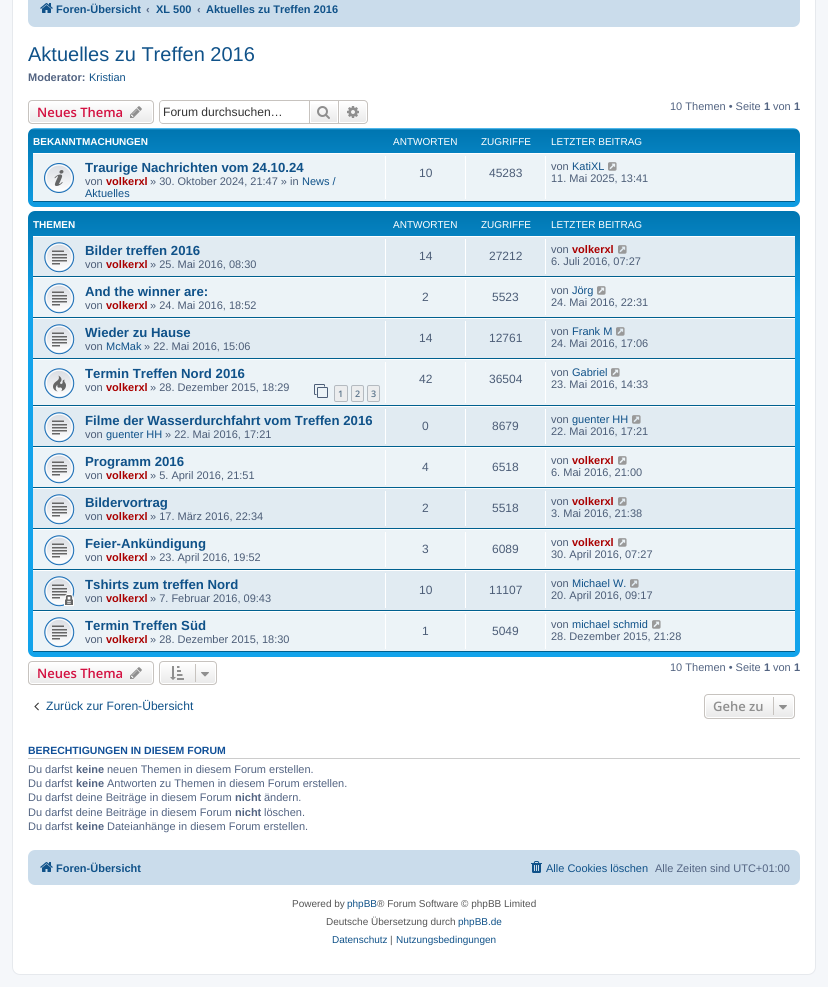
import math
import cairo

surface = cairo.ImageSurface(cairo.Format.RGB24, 828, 987)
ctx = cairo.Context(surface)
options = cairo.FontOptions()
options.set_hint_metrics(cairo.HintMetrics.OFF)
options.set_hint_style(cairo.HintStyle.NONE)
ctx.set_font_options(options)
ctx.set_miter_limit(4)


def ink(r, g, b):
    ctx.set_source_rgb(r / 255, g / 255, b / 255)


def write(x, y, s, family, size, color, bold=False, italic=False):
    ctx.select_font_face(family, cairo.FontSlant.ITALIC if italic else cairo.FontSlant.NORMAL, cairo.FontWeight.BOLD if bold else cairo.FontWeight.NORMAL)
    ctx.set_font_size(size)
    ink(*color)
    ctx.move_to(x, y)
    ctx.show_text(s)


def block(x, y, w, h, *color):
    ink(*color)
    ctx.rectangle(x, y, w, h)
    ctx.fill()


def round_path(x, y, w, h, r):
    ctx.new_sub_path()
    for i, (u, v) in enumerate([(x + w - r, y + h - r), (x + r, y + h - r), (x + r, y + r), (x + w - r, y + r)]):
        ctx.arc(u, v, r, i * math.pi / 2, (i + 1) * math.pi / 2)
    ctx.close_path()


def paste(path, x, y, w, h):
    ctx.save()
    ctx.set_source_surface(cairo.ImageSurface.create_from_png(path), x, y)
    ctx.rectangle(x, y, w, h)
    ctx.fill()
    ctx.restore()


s1 = dict(family="Liberation Sans", size=11, color=(16, 82, 137), bold=True)
s2 = dict(family="Liberation Sans", size=11, color=(83, 100, 130), bold=True)
s3 = dict(family="Liberation Sans", size=20, color=(16, 82, 137))
s4 = dict(family="Liberation Sans", size=11, color=(16, 82, 137))
s5 = dict(family="Open Sans SemiBold", size=13, color=(211, 17, 65))
s6 = dict(family="Liberation Sans", size=12.1, color=(51, 51, 51))
s7 = dict(family="Liberation Sans", size=11, color=(83, 100, 130))
s8 = dict(family="Liberation Sans", size=10, color=(255, 255, 255), bold=True)
s9 = dict(family="Liberation Sans", size=10, color=(255, 255, 255))
s10 = dict(family="Liberation Sans", size=13.2, color=(16, 82, 137), bold=True)
s11 = dict(family="Liberation Sans", size=11, color=(76, 93, 119))
s12 = dict(family="Liberation Sans", size=11, color=(170, 0, 0), bold=True)
s13 = dict(family="Liberation Sans", size=12, color=(76, 93, 119))
s14 = dict(family="Open Sans SemiBold", size=9, color=(92, 117, 140))
s15 = dict(family="Liberation Sans", size=12.1, color=(16, 82, 137))
s16 = dict(family="Open Sans SemiBold", size=13, color=(143, 143, 143))
s17 = dict(family="Liberation Sans", size=10.5, color=(17, 80, 152), bold=True)
s18 = dict(family="Liberation Sans", size=10, color=(85, 85, 85))
s19 = dict(family="Liberation Sans", size=10, color=(16, 82, 137))

ink(245, 247, 250)
ctx.paint()
ink(255, 255, 255)
round_path(12.5, -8.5, 803, 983, 7.5)
ctx.fill_preserve()
ink(230, 233, 237)
ctx.set_line_width(1)
ctx.stroke()
ink(202, 220, 235)
round_path(28, -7, 772, 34, 7)
ctx.fill()
paste("pic1.png", 40, 3, 13, 10)
write(56, 13, "Foren-Übersicht", **s1)
write(146, 13, "‹", **s2)
write(156, 13, "XL 500", **s1)
write(197, 13, "‹", **s2)
write(206, 13, "Aktuelles zu Treffen 2016", **s1)
write(28, 61, "Aktuelles zu Treffen 2016", **s3)
write(28, 81, "Moderator:", **s2)
write(89, 81, "Kristian", **s4)
ctx.save()
round_path(28, 100, 126, 24, 4)
ctx.clip()
gradient = cairo.LinearGradient(91, 101, 91, 123)
gradient.add_color_stop_rgba(0, 1, 1, 1, 1)
gradient.add_color_stop_rgba(1, 0.914, 0.914, 0.914, 1)
ctx.set_source(gradient)
ctx.rectangle(28, 101, 126, 22)
ctx.fill()
ctx.restore()
round_path(29.5, 101.5, 123, 21, 2.5)
ink(255, 255, 255)
ctx.stroke()
round_path(28.5, 100.5, 125, 23, 3.5)
ink(199, 195, 191)
ctx.stroke()
write(37, 117, "Neues Thema", **s5)
paste("pic2.png", 130, 106, 12, 12)
ink(199, 195, 191)
ctx.set_fill_rule(cairo.FillRule.EVEN_ODD)
ctx.new_path()
ctx.move_to(163, 100)
ctx.line_to(309, 100)
ctx.line_to(309, 124)
ctx.line_to(163, 124)
ctx.curve_to(161, 124, 159, 122, 159, 120)
ctx.line_to(159, 104)
ctx.curve_to(159, 102, 161, 100, 163, 100)
ctx.close_path()
ctx.move_to(163, 101)
ctx.line_to(309, 101)
ctx.line_to(309, 123)
ctx.line_to(163, 123)
ctx.curve_to(161, 123, 160, 122, 160, 120)
ctx.line_to(160, 104)
ctx.curve_to(160, 102, 161, 101, 163, 101)
ctx.close_path()
ctx.fill()
write(163, 116, "Forum durchsuchen…", **s6)
gradient = cairo.LinearGradient(324, 101, 324, 123)
gradient.add_color_stop_rgba(0, 1, 1, 1, 1)
gradient.add_color_stop_rgba(1, 0.914, 0.914, 0.914, 1)
ctx.set_source(gradient)
ctx.rectangle(311, 104, 26, 18)
ctx.fill()
ctx.rectangle(309.5, 100.5, 29, 23)
ink(199, 195, 191)
ctx.stroke()
paste("pic3.png", 317, 106, 13, 13)
gradient = cairo.LinearGradient(353, 101, 353, 123)
gradient.add_color_stop_rgba(0, 1, 1, 1, 1)
gradient.add_color_stop_rgba(1, 0.914, 0.914, 0.914, 1)
ctx.set_source(gradient)
ctx.new_path()
ctx.move_to(339.5, 101.5)
ctx.line_to(364, 101.5)
ctx.curve_to(365.5, 101.5, 366.5, 102.5, 366.5, 104)
ctx.line_to(366.5, 120)
ctx.curve_to(366.5, 121.5, 365.5, 122.5, 364, 122.5)
ctx.line_to(339.5, 122.5)
ctx.close_path()
ctx.fill_preserve()
ink(255, 255, 255)
ctx.stroke()
ink(199, 195, 191)
ctx.new_path()
ctx.move_to(339, 100)
ctx.line_to(364, 100)
ctx.curve_to(366, 100, 368, 102, 368, 104)
ctx.line_to(368, 120)
ctx.curve_to(368, 122, 366, 124, 364, 124)
ctx.line_to(339, 124)
ctx.close_path()
ctx.move_to(339, 101)
ctx.line_to(364, 101)
ctx.curve_to(365.5, 101, 367, 102.5, 367, 104)
ctx.line_to(367, 120)
ctx.curve_to(367, 121.5, 365.5, 123, 364, 123)
ctx.line_to(339, 123)
ctx.close_path()
ctx.fill()
paste("pic4.png", 347, 106, 12, 12)
write(670, 110, "10 Themen • Seite", **s7)
write(764, 110, "1", **s2)
write(773, 110, "von", **s7)
write(794, 110, "1", **s2)
gradient = cairo.LinearGradient(414, 128, 414, 220)
gradient.add_color_stop_rgba(0, 0.416, 0.808, 1, 1)
gradient.add_color_stop_rgba(0.02, 0, 0.463, 0.694, 1)
gradient.add_color_stop_rgba(1, 0.071, 0.639, 0.922, 1)
ctx.set_source(gradient)
round_path(28, 128, 772, 79, 7)
ctx.fill()
write(33, 145, "BEKANNTMACHUNGEN", **s8)
write(393, 145, "ANTWORTEN", **s9)
write(481, 145, "ZUGRIFFE", **s9)
write(551, 145, "LETZTER BEITRAG", **s9)
block(33, 154, 762, 47, 236, 243, 247)
block(33, 153, 762, 1, 255, 255, 255)
block(33, 201, 762, 1, 0, 96, 143)
paste("pic5.png", 44, 163, 30, 30)
write(85, 172, "Traurige Nachrichten vom 24.10.24", **s10)
write(85, 185, "von", **s11)
write(106, 185, "volkerxl", **s12)
write(150, 185, "» 30. Oktober 2024, 21:47 » in", **s11)
write(302, 185, "News /", **s4)
write(85, 197, "Aktuelles", **s4)
block(385, 156, 1, 43, 255, 255, 255)
write(419, 177, "10", **s13)
block(465, 156, 1, 43, 255, 255, 255)
write(489, 177, "45283", **s13)
block(545, 156, 1, 43, 255, 255, 255)
write(551, 170, "von", **s11)
write(572, 170, "KatiXL", **s4)
paste("pic6.png", 608, 162, 9, 9)
write(551, 182, "11. Mai 2025, 13:41", **s11)
gradient = cairo.LinearGradient(414, 211, 414, 657)
gradient.add_color_stop_rgba(0, 0.416, 0.808, 1, 1)
gradient.add_color_stop_rgba(0, 0, 0.463, 0.694, 1)
gradient.add_color_stop_rgba(0.21, 0.071, 0.639, 0.922, 1)
gradient.add_color_stop_rgba(1, 0.071, 0.639, 0.922, 1)
ctx.set_source(gradient)
round_path(28, 211, 772, 446, 7)
ctx.fill()
write(33, 228, "THEMEN", **s8)
write(393, 228, "ANTWORTEN", **s9)
write(481, 228, "ZUGRIFFE", **s9)
write(551, 228, "LETZTER BEITRAG", **s9)
block(33, 237, 762, 39, 225, 235, 242)
block(33, 236, 762, 1, 255, 255, 255)
block(33, 276, 762, 1, 0, 96, 143)
paste("pic7.png", 44, 242, 31, 31)
write(85, 255, "Bilder treffen 2016", **s10)
write(85, 268, "von", **s11)
write(106, 268, "volkerxl", **s12)
write(150, 268, "» 25. Mai 2016, 08:30", **s11)
block(385, 239, 1, 35, 255, 255, 255)
write(419, 260, "14", **s13)
block(465, 239, 1, 35, 255, 255, 255)
write(489, 260, "27212", **s13)
block(545, 239, 1, 35, 255, 255, 255)
write(551, 253, "von", **s11)
write(572, 253, "volkerxl", **s12)
paste("pic8.png", 618, 245, 9, 9)
write(551, 265, "6. Juli 2016, 07:27", **s11)
block(33, 278, 762, 39, 236, 243, 247)
block(33, 277, 762, 1, 255, 255, 255)
block(33, 317, 762, 1, 0, 96, 143)
paste("pic9.png", 44, 283, 31, 31)
write(85, 296, "And the winner are:", **s10)
write(85, 309, "von", **s11)
write(106, 309, "volkerxl", **s12)
write(150, 309, "» 24. Mai 2016, 18:52", **s11)
block(385, 280, 1, 35, 255, 255, 255)
write(422, 301, "2", **s13)
block(465, 280, 1, 35, 255, 255, 255)
write(492, 301, "5523", **s13)
block(545, 280, 1, 35, 255, 255, 255)
write(551, 294, "von", **s11)
write(572, 294, "Jörg", **s4)
paste("pic6.png", 597, 286, 9, 9)
write(551, 306, "24. Mai 2016, 22:31", **s11)
block(33, 319, 762, 39, 225, 235, 242)
block(33, 318, 762, 1, 255, 255, 255)
block(33, 358, 762, 1, 0, 96, 143)
paste("pic7.png", 44, 324, 31, 31)
write(85, 337, "Wieder zu Hause", **s10)
write(85, 350, "von", **s11)
write(106, 350, "McMak", **s4)
write(144, 350, "» 22. Mai 2016, 15:06", **s11)
block(385, 321, 1, 35, 255, 255, 255)
write(419, 342, "14", **s13)
block(465, 321, 1, 35, 255, 255, 255)
write(489, 342, "12761", **s13)
block(545, 321, 1, 35, 255, 255, 255)
write(551, 335, "von", **s11)
write(572, 335, "Frank M", **s4)
paste("pic8.png", 616, 327, 9, 9)
write(551, 347, "24. Mai 2016, 17:06", **s11)
block(33, 360, 762, 45, 236, 243, 247)
block(33, 359, 762, 1, 255, 255, 255)
block(33, 405, 762, 1, 0, 96, 143)
paste("pic10.png", 44, 368, 31, 31)
write(85, 378, "Termin Treffen Nord 2016", **s10)
write(85, 391, "von", **s11)
write(106, 391, "volkerxl", **s12)
write(150, 391, "» 28. Dezember 2015, 18:29", **s11)
paste("pic11.png", 314, 384, 14, 14)
ink(236, 237, 238)
round_path(334.5, 385.5, 13, 16, 1.5)
ctx.fill_preserve()
ink(180, 186, 192)
ctx.stroke()
write(338, 397, "1", **s14)
ink(236, 237, 238)
round_path(351.5, 385.5, 12, 16, 1.5)
ctx.fill_preserve()
ink(180, 186, 192)
ctx.stroke()
write(355, 397, "2", **s14)
ink(236, 237, 238)
round_path(367.5, 385.5, 12, 16, 1.5)
ctx.fill_preserve()
ink(180, 186, 192)
ctx.stroke()
write(371, 397, "3", **s14)
block(385, 362, 1, 41, 255, 255, 255)
write(419, 383, "42", **s13)
block(465, 362, 1, 41, 255, 255, 255)
write(489, 383, "36504", **s13)
block(545, 362, 1, 41, 255, 255, 255)
write(551, 376, "von", **s11)
write(572, 376, "Gabriel", **s4)
paste("pic6.png", 611, 368, 9, 9)
write(551, 388, "23. Mai 2016, 14:33", **s11)
block(33, 407, 762, 39, 225, 235, 242)
block(33, 406, 762, 1, 255, 255, 255)
block(33, 446, 762, 1, 0, 96, 143)
paste("pic7.png", 44, 412, 31, 31)
write(85, 425, "Filme der Wasserdurchfahrt vom Treffen 2016", **s10)
write(85, 438, "von", **s11)
write(106, 438, "guenter HH", **s4)
write(165, 438, "» 22. Mai 2016, 17:21", **s11)
block(385, 409, 1, 35, 255, 255, 255)
write(422, 430, "0", **s13)
block(465, 409, 1, 35, 255, 255, 255)
write(492, 430, "8679", **s13)
block(545, 409, 1, 35, 255, 255, 255)
write(551, 423, "von", **s11)
write(572, 423, "guenter HH", **s4)
paste("pic8.png", 632, 415, 9, 9)
write(551, 435, "22. Mai 2016, 17:21", **s11)
block(33, 448, 762, 39, 236, 243, 247)
block(33, 447, 762, 1, 255, 255, 255)
block(33, 487, 762, 1, 0, 96, 143)
paste("pic9.png", 44, 453, 31, 31)
write(85, 466, "Programm 2016", **s10)
write(85, 479, "von", **s11)
write(106, 479, "volkerxl", **s12)
write(150, 479, "» 5. April 2016, 21:51", **s11)
block(385, 450, 1, 35, 255, 255, 255)
write(422, 471, "4", **s13)
block(465, 450, 1, 35, 255, 255, 255)
write(492, 471, "6518", **s13)
block(545, 450, 1, 35, 255, 255, 255)
write(551, 464, "von", **s11)
write(572, 464, "volkerxl", **s12)
paste("pic6.png", 618, 456, 9, 9)
write(551, 476, "6. Mai 2016, 21:00", **s11)
block(33, 489, 762, 39, 225, 235, 242)
block(33, 488, 762, 1, 255, 255, 255)
block(33, 528, 762, 1, 0, 96, 143)
paste("pic7.png", 44, 494, 31, 31)
write(85, 507, "Bildervortrag", **s10)
write(85, 520, "von", **s11)
write(106, 520, "volkerxl", **s12)
write(150, 520, "» 17. März 2016, 22:34", **s11)
block(385, 491, 1, 35, 255, 255, 255)
write(422, 512, "2", **s13)
block(465, 491, 1, 35, 255, 255, 255)
write(492, 512, "5518", **s13)
block(545, 491, 1, 35, 255, 255, 255)
write(551, 505, "von", **s11)
write(572, 505, "volkerxl", **s12)
paste("pic8.png", 618, 497, 9, 9)
write(551, 517, "3. Mai 2016, 21:38", **s11)
block(33, 530, 762, 39, 236, 243, 247)
block(33, 529, 762, 1, 255, 255, 255)
block(33, 569, 762, 1, 0, 96, 143)
paste("pic9.png", 44, 535, 31, 31)
write(85, 548, "Feier-Ankündigung", **s10)
write(85, 561, "von", **s11)
write(106, 561, "volkerxl", **s12)
write(150, 561, "» 23. April 2016, 19:52", **s11)
block(385, 532, 1, 35, 255, 255, 255)
write(422, 553, "3", **s13)
block(465, 532, 1, 35, 255, 255, 255)
write(492, 553, "6089", **s13)
block(545, 532, 1, 35, 255, 255, 255)
write(551, 546, "von", **s11)
write(572, 546, "volkerxl", **s12)
paste("pic6.png", 618, 538, 9, 9)
write(551, 558, "30. April 2016, 07:27", **s11)
block(33, 571, 762, 39, 225, 235, 242)
block(33, 570, 762, 1, 255, 255, 255)
block(33, 610, 762, 1, 0, 96, 143)
paste("pic12.png", 44, 576, 31, 31)
write(85, 589, "Tshirts zum treffen Nord", **s10)
write(85, 602, "von", **s11)
write(106, 602, "volkerxl", **s12)
write(150, 602, "» 7. Februar 2016, 09:43", **s11)
block(385, 573, 1, 35, 255, 255, 255)
write(419, 594, "10", **s13)
block(465, 573, 1, 35, 255, 255, 255)
write(489, 594, "11107", **s13)
block(545, 573, 1, 35, 255, 255, 255)
write(551, 587, "von", **s11)
write(572, 587, "Michael W.", **s4)
paste("pic8.png", 630, 579, 9, 9)
write(551, 599, "20. April 2016, 09:17", **s11)
block(33, 612, 762, 39, 236, 243, 247)
block(33, 611, 762, 1, 255, 255, 255)
block(33, 651, 762, 1, 0, 96, 143)
paste("pic9.png", 44, 617, 31, 31)
write(85, 630, "Termin Treffen Süd", **s10)
write(85, 643, "von", **s11)
write(106, 643, "volkerxl", **s12)
write(150, 643, "» 28. Dezember 2015, 18:30", **s11)
block(385, 614, 1, 35, 255, 255, 255)
write(422, 635, "1", **s13)
block(465, 614, 1, 35, 255, 255, 255)
write(492, 635, "5049", **s13)
block(545, 614, 1, 35, 255, 255, 255)
write(551, 628, "von", **s11)
write(572, 628, "michael schmid", **s4)
paste("pic6.png", 652, 620, 9, 9)
write(551, 640, "28. Dezember 2015, 21:28", **s11)
ctx.save()
ctx.set_fill_rule(cairo.FillRule.WINDING)
round_path(28, 661, 126, 24, 4)
ctx.clip()
gradient = cairo.LinearGradient(91, 662, 91, 684)
gradient.add_color_stop_rgba(0, 1, 1, 1, 1)
gradient.add_color_stop_rgba(1, 0.914, 0.914, 0.914, 1)
ctx.set_source(gradient)
ctx.rectangle(28, 662, 126, 22)
ctx.fill()
ctx.restore()
round_path(29.5, 662.5, 123, 21, 2.5)
ink(255, 255, 255)
ctx.stroke()
round_path(28.5, 661.5, 125, 23, 3.5)
ink(199, 195, 191)
ctx.stroke()
write(37, 678, "Neues Thema", **s5)
paste("pic2.png", 130, 667, 12, 12)
ctx.save()
ctx.set_fill_rule(cairo.FillRule.WINDING)
round_path(159, 661, 58, 24, 4)
ctx.clip()
gradient = cairo.LinearGradient(188, 662, 188, 684)
gradient.add_color_stop_rgba(0, 1, 1, 1, 1)
gradient.add_color_stop_rgba(1, 0.914, 0.914, 0.914, 1)
ctx.set_source(gradient)
ctx.rectangle(159, 662, 58, 22)
ctx.fill()
ctx.restore()
round_path(160.5, 662.5, 55, 21, 2.5)
ink(255, 255, 255)
ctx.stroke()
round_path(159.5, 661.5, 57, 23, 3.5)
ink(199, 195, 191)
ctx.stroke()
paste("pic13.png", 170, 666, 14, 14)
block(195, 664, 1, 18, 199, 195, 191)
paste("pic14.png", 201, 672, 8, 5)
write(670, 671, "10 Themen • Seite", **s7)
write(764, 671, "1", **s2)
write(773, 671, "von", **s7)
write(794, 671, "1", **s2)
paste("pic15.png", 34, 702, 5, 9)
write(46, 710, "Zurück zur Foren-Übersicht", **s15)
ctx.save()
ctx.set_fill_rule(cairo.FillRule.WINDING)
round_path(704, 694, 91, 25, 4)
ctx.clip()
gradient = cairo.LinearGradient(750, 695, 750, 718)
gradient.add_color_stop_rgba(0, 1, 1, 1, 1)
gradient.add_color_stop_rgba(1, 0.914, 0.914, 0.914, 1)
ctx.set_source(gradient)
ctx.rectangle(704, 695, 91, 23)
ctx.fill()
ctx.restore()
round_path(705.5, 695.5, 88, 22, 2.5)
ink(255, 255, 255)
ctx.stroke()
round_path(704.5, 694.5, 90, 24, 3.5)
ink(199, 195, 191)
ctx.stroke()
write(713, 711, "Gehe zu", **s16)
block(773, 697, 1, 18, 199, 195, 191)
paste("pic14.png", 779, 705, 8, 5)
block(28, 758, 772, 1, 204, 204, 204)
write(28, 754, "BERECHTIGUNGEN IN DIESEM FORUM", **s17)
write(28, 773, "Du darfst", **s7)
write(76, 773, "keine", **s2)
write(107, 773, "neuen Themen in diesem Forum erstellen.", **s7)
write(28, 787, "Du darfst", **s7)
write(76, 787, "keine", **s2)
write(107, 787, "Antworten zu Themen in diesem Forum erstellen.", **s7)
write(28, 801, "Du darfst deine Beiträge in diesem Forum", **s7)
write(235, 801, "nicht", **s2)
write(264, 801, "ändern.", **s7)
write(28, 816, "Du darfst deine Beiträge in diesem Forum", **s7)
write(235, 816, "nicht", **s2)
write(264, 816, "löschen.", **s7)
write(28, 830, "Du darfst", **s7)
write(76, 830, "keine", **s2)
write(107, 830, "Dateianhänge in diesem Forum erstellen.", **s7)
ink(202, 220, 235)
round_path(28, 850, 772, 35, 7)
ctx.fill()
paste("pic1.png", 40, 862, 13, 10)
write(56, 872, "Foren-Übersicht", **s1)
paste("pic16.png", 531, 861, 11, 12)
write(546, 872, "Alle Cookies löschen", **s4)
write(655, 872, "Alle Zeiten sind UTC+01:00", **s7)
write(292, 907, "Powered by", **s18)
write(347, 907, "phpBB", **s19)
write(377, 907, "® Forum Software © phpBB Limited", **s18)
write(326, 925, "Deutsche Übersetzung durch", **s18)
write(458, 925, "phpBB.de", **s19)
write(332, 943, "Datenschutz", **s19)
write(390, 943, "|", **s18)
write(396, 943, "Nutzungsbedingungen", **s19)
surface.write_to_png("screenshot.png")
